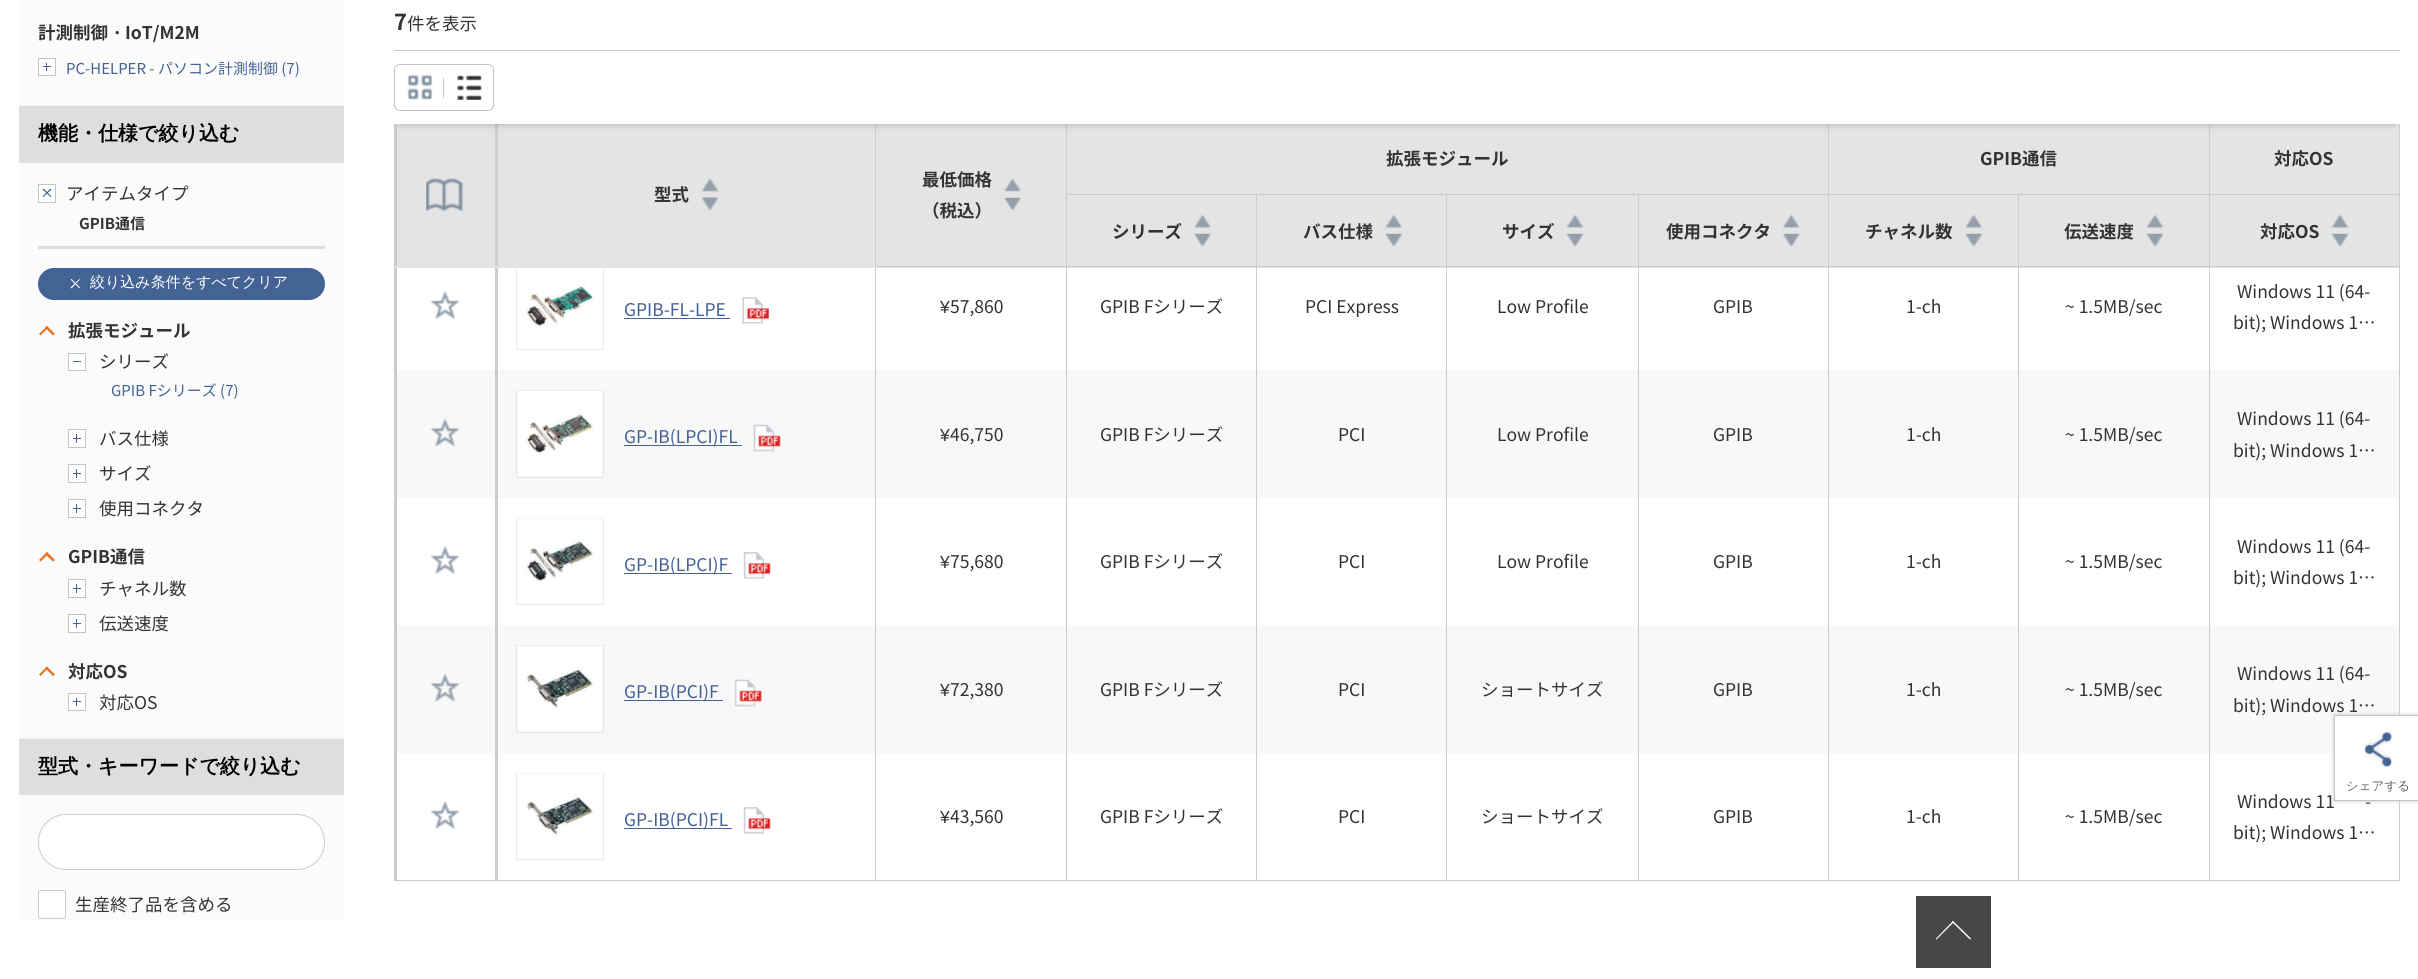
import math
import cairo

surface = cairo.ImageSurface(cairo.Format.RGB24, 2418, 979)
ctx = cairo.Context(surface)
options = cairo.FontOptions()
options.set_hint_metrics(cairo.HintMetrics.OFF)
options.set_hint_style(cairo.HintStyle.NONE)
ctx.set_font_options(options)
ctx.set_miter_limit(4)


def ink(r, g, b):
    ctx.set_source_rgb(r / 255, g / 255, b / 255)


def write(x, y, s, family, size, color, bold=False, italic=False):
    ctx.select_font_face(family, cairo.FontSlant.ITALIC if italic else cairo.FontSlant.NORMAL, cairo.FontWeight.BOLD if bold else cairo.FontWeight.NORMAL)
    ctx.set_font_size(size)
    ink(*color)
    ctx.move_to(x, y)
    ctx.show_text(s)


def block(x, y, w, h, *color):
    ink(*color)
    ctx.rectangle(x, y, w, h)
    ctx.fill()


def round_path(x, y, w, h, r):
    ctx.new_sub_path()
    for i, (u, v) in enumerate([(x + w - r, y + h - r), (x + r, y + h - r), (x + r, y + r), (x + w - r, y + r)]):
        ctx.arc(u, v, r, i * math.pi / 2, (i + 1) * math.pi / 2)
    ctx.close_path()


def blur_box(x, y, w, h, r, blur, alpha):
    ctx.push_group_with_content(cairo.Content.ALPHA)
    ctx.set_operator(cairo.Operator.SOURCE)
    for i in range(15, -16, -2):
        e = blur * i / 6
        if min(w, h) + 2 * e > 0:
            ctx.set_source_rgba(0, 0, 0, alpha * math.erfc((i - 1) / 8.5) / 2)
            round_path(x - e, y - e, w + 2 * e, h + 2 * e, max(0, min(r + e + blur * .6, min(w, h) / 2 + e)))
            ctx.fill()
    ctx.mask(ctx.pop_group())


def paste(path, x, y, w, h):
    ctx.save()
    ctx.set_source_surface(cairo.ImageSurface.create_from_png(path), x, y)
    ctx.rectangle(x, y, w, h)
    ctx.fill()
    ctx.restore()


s1 = dict(family="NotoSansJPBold", size=17.5, color=(51, 51, 51), bold=True)
s2 = dict(family="WenQuanYi Zen Hei", size=17.5, color=(51, 51, 51), bold=True)
s3 = dict(family="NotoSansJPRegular", size=15, color=(68, 99, 149))
s4 = dict(family="WenQuanYi Zen Hei", size=20, color=(0, 0, 0), bold=True)
s5 = dict(family="NotoSansJPRegular", size=17.5, color=(51, 51, 51))
s6 = dict(family="NotoSansJPBold", size=15, color=(51, 51, 51), bold=True)
s7 = dict(family="WenQuanYi Zen Hei Medium", size=15, color=(255, 255, 255))
s8 = dict(family="NotoSansJPBold", size=22, color=(51, 51, 51), bold=True)
s9 = dict(family="NotoSansJPRegular", size=17.5, color=(68, 99, 149))
s10 = dict(family="Liberation Sans", size=17.5, color=(51, 51, 51))
s11 = dict(family="WenQuanYi Zen Hei Medium", size=12.5, color=(102, 102, 102))

ink(255, 255, 255)
ctx.paint()
block(19, 105, 325, 634, 241, 241, 241)
block(19, 0, 325, 105, 251, 251, 251)
write(38, 39, "計測制御", **s1)
write(108, 39, "・", **s2)
write(125, 39, "IoT/M2M", **s1)
ink(255, 255, 255)
ctx.rectangle(38.5, 58.5, 17, 17)
ctx.fill_preserve()
ink(193, 196, 205)
ctx.set_line_width(1)
ctx.stroke()
block(43, 66, 8, 1, 68, 99, 149)
block(46, 63, 1, 8, 68, 99, 149)
write(66, 74, "PC-HELPER - パソコン計測制御 (7)", **s3)
block(19, 106, 325, 57, 222, 222, 222)
write(38, 140, "機能・仕様で絞り込む", **s4)
block(19, 163, 325, 575, 251, 251, 251)
block(38, 246, 287, 3, 222, 222, 222)
ink(255, 255, 255)
ctx.rectangle(38.5, 184.5, 17, 18)
ctx.fill_preserve()
ink(193, 196, 205)
ctx.stroke()
ink(68, 99, 149)
ctx.new_path()
ctx.move_to(50.5, 188.5)
ctx.line_to(51.5, 189.5)
ctx.line_to(43.5, 197)
ctx.line_to(42.5, 196.5)
ctx.close_path()
ctx.fill()
ctx.new_path()
ctx.move_to(42.5, 189.5)
ctx.line_to(43.5, 188.5)
ctx.line_to(51.5, 196.5)
ctx.line_to(50.5, 197)
ctx.close_path()
ctx.fill()
write(66, 200, "アイテムタイプ", **s5)
write(79, 229, "GPIB通信", **s6)
ink(68, 99, 149)
round_path(38, 268, 287, 32, 16)
ctx.fill()
ink(255, 255, 255)
ctx.new_path()
ctx.move_to(79.5, 279)
ctx.line_to(80, 279.5)
ctx.line_to(71.5, 288.5)
ctx.line_to(70.5, 287.5)
ctx.close_path()
ctx.fill()
write(90, 287, "絞り込み条件をすべてクリア", **s7)
ctx.new_path()
ctx.move_to(70.5, 279.5)
ctx.line_to(71.5, 279)
ctx.line_to(80, 287.5)
ctx.line_to(79.5, 288.5)
ctx.close_path()
ctx.fill()
ink(234, 114, 36)
ctx.new_path()
ctx.move_to(39, 334)
ctx.line_to(47, 326)
ctx.line_to(48.5, 327.5)
ctx.line_to(40.5, 335.5)
ctx.close_path()
ctx.fill()
ctx.new_path()
ctx.move_to(45, 327.5)
ctx.line_to(47, 326)
ctx.line_to(55, 334)
ctx.line_to(53, 335.5)
ctx.close_path()
ctx.fill()
write(68, 337, "拡張モジュール", **s1)
ink(255, 255, 255)
ctx.rectangle(68.5, 353.5, 17, 17)
ctx.fill_preserve()
ink(193, 196, 205)
ctx.stroke()
block(73, 361, 8, 1, 68, 99, 149)
write(99, 368, "シリーズ", **s5)
write(111, 396, "GPIB Fシリーズ (7)", **s3)
ink(255, 255, 255)
ctx.rectangle(68.5, 429.5, 17, 18)
ctx.fill_preserve()
ink(193, 196, 205)
ctx.stroke()
block(73, 438, 8, 1, 68, 99, 149)
block(76, 434, 1, 9, 68, 99, 149)
write(99, 445, "バス仕様", **s5)
ink(255, 255, 255)
ctx.rectangle(68.5, 464.5, 17, 18)
ctx.fill_preserve()
ink(193, 196, 205)
ctx.stroke()
block(73, 473, 8, 1, 68, 99, 149)
block(76, 469, 1, 9, 68, 99, 149)
write(99, 480, "サイズ", **s5)
ink(255, 255, 255)
ctx.rectangle(68.5, 499.5, 17, 18)
ctx.fill_preserve()
ink(193, 196, 205)
ctx.stroke()
block(73, 508, 8, 1, 68, 99, 149)
block(76, 504, 1, 9, 68, 99, 149)
write(99, 515, "使用コネクタ", **s5)
ink(234, 114, 36)
ctx.new_path()
ctx.move_to(39, 560)
ctx.line_to(47, 552)
ctx.line_to(48.5, 554)
ctx.line_to(40.5, 561.5)
ctx.close_path()
ctx.fill()
ctx.new_path()
ctx.move_to(45, 554)
ctx.line_to(47, 552)
ctx.line_to(55, 560)
ctx.line_to(53, 561.5)
ctx.close_path()
ctx.fill()
write(68, 563, "GPIB通信", **s1)
ink(255, 255, 255)
ctx.rectangle(68.5, 579.5, 17, 18)
ctx.fill_preserve()
ink(193, 196, 205)
ctx.stroke()
block(73, 588, 8, 1, 68, 99, 149)
block(76, 584, 1, 9, 68, 99, 149)
write(99, 595, "チャネル数", **s5)
ink(255, 255, 255)
ctx.rectangle(68.5, 614.5, 17, 18)
ctx.fill_preserve()
ink(193, 196, 205)
ctx.stroke()
block(73, 623, 8, 1, 68, 99, 149)
block(76, 619, 1, 9, 68, 99, 149)
write(99, 630, "伝送速度", **s5)
ink(234, 114, 36)
ctx.new_path()
ctx.move_to(39, 674.5)
ctx.line_to(47, 666.5)
ctx.line_to(48.5, 668)
ctx.line_to(40.5, 676)
ctx.close_path()
ctx.fill()
ctx.new_path()
ctx.move_to(45, 668)
ctx.line_to(47, 666.5)
ctx.line_to(55, 674.5)
ctx.line_to(53, 676)
ctx.close_path()
ctx.fill()
write(68, 678, "対応OS", **s1)
ink(255, 255, 255)
ctx.rectangle(68.5, 693.5, 17, 17)
ctx.fill_preserve()
ink(193, 196, 205)
ctx.stroke()
block(73, 701, 8, 1, 68, 99, 149)
block(76, 698, 1, 8, 68, 99, 149)
write(99, 709, "対応OS", **s5)
block(19, 739, 325, 56, 222, 222, 222)
write(38, 773, "型式・キーワードで絞り込む", **s4)
block(19, 795, 325, 126, 251, 251, 251)
ink(255, 255, 255)
round_path(38.5, 814.5, 286, 55, 27.5)
ctx.fill_preserve()
ink(204, 204, 204)
ctx.stroke()
ink(255, 255, 255)
round_path(38.5, 890.5, 27, 28, 2)
ctx.fill_preserve()
ink(204, 204, 204)
ctx.stroke()
write(75, 911, "生産終了品を含める", **s5)
block(394, 123, 3, 143, 204, 204, 204)
block(397, 124, 98, 142, 228, 228, 228)
block(1067, 124, 761, 70, 228, 228, 228)
block(1829, 124, 380, 70, 228, 228, 228)
block(2399, 121, 1, 760, 204, 204, 204)
block(2209, 194, 191, 1, 204, 204, 204)
block(876, 124, 190, 144, 228, 228, 228)
block(1067, 195, 571, 73, 228, 228, 228)
block(1639, 195, 189, 73, 228, 228, 228)
block(1829, 195, 189, 73, 228, 228, 228)
block(2019, 195, 190, 73, 228, 228, 228)
block(2210, 195, 189, 73, 228, 228, 228)
ctx.rectangle(516.5, 263.5, 87, 86)
ink(232, 232, 232)
ctx.stroke()
block(394, 266, 2006, 1, 204, 204, 204)
block(2209, 194, 1, 74, 204, 204, 204)
block(2018, 194, 192, 1, 204, 204, 204)
block(2018, 194, 1, 74, 204, 204, 204)
block(1828, 194, 191, 1, 204, 204, 204)
block(1828, 194, 1, 74, 204, 204, 204)
block(1638, 194, 191, 1, 204, 204, 204)
block(1828, 121, 1, 74, 204, 204, 204)
block(2210, 124, 189, 70, 228, 228, 228)
block(2209, 121, 1, 74, 204, 204, 204)
block(495, 124, 381, 144, 228, 228, 228)
block(495, 123, 3, 143, 204, 204, 204)
block(875, 123, 1, 143, 204, 204, 204)
block(1638, 194, 1, 74, 204, 204, 204)
block(1446, 194, 193, 1, 204, 204, 204)
block(1446, 194, 1, 74, 204, 204, 204)
block(1256, 194, 192, 1, 204, 204, 204)
block(1256, 194, 1, 74, 204, 204, 204)
block(1066, 194, 192, 1, 204, 204, 204)
block(1066, 121, 1, 147, 204, 204, 204)
ink(51, 51, 51)
blur_box(399, 13, 1996, 113, 0, 2.5, 0.2)
block(394, 9, 2006, 115, 255, 255, 255)
block(394, 50, 2006, 1, 204, 204, 204)
write(394, 30, "7", **s8)
write(407, 30, "件を表示", **s5)
round_path(394.5, 64.5, 99, 46, 5.5)
ink(193, 196, 205)
ctx.stroke()
paste("pic1.png", 407, 74, 26, 26)
block(443, 78, 1, 20, 193, 196, 205)
paste("pic2.png", 457, 75, 25, 25)
block(394, 267, 3, 613, 204, 204, 204)
block(395, 266, 100, 2, 228, 228, 228)
paste("pic3.png", 426, 178, 38, 34)
write(1386, 165, "拡張モジュール", **s1)
write(1980, 165, "GPIB通信", **s1)
write(2274, 165, "対応OS", **s1)
write(654, 201, "型式", **s1)
paste("pic4.png", 702, 178, 17, 14)
paste("pic5.png", 702, 197, 17, 14)
write(922, 186, "最低価格", **s1)
write(922, 217, "（税込）", **s1)
paste("pic6.png", 1004, 179, 17, 13)
paste("pic7.png", 1004, 197, 17, 13)
write(1112, 238, "シリーズ", **s1)
paste("pic8.png", 1194, 214, 17, 14)
paste("pic9.png", 1194, 233, 17, 14)
write(1303, 238, "バス仕様", **s1)
paste("pic10.png", 1385, 214, 17, 14)
paste("pic11.png", 1385, 233, 17, 14)
write(1502, 238, "サイズ", **s1)
paste("pic12.png", 1566, 214, 17, 14)
paste("pic13.png", 1566, 233, 17, 14)
write(1666, 238, "使用コネクタ", **s1)
paste("pic14.png", 1783, 214, 17, 14)
paste("pic15.png", 1782, 233, 18, 14)
write(1865, 238, "チャネル数", **s1)
paste("pic10.png", 1965, 214, 17, 14)
paste("pic11.png", 1965, 233, 17, 14)
write(2064, 238, "伝送速度", **s1)
paste("pic16.png", 2146, 214, 17, 14)
paste("pic17.png", 2146, 233, 17, 14)
write(2260, 238, "対応OS", **s1)
paste("pic12.png", 2331, 214, 17, 14)
paste("pic13.png", 2331, 233, 17, 14)
block(394, 880, 1, 1, 204, 204, 204)
paste("pic18.png", 430, 290, 30, 30)
block(495, 268, 3, 612, 204, 204, 204)
paste("pic19.png", 517, 268, 86, 59)
write(624, 316, "GPIB-FL-LPE", **s9)
block(624, 318, 106, 1, 68, 99, 149)
paste("pic20.png", 741, 297, 28, 28)
block(875, 268, 1, 612, 204, 204, 204)
write(940, 313, "¥", **s10)
write(950, 313, "57,860", **s5)
write(1100, 313, "GPIB Fシリーズ", **s5)
write(1305, 313, "PCI Express", **s5)
write(1497, 313, "Low Profile", **s5)
write(1713, 313, "GPIB", **s5)
write(1906, 313, "1-ch", **s5)
write(2065, 313, "~ 1.5MB/sec", **s5)
write(2237, 298, "Windows 11 (64-", **s5)
write(2233, 329, "bit); Windows 1…", **s5)
block(397, 370, 98, 128, 248, 248, 248)
paste("pic21.png", 430, 418, 30, 29)
block(498, 370, 377, 128, 248, 248, 248)
ctx.rectangle(516.5, 390.5, 87, 87)
ink(232, 232, 232)
ctx.stroke()
paste("pic22.png", 518, 390, 84, 86)
block(624, 445, 118, 1, 68, 99, 149)
write(624, 443, "GP-IB(LPCI)FL", **s9)
paste("pic23.png", 753, 424, 28, 28)
block(876, 370, 190, 128, 248, 248, 248)
write(940, 441, "¥", **s10)
write(950, 441, "46,750", **s5)
block(1067, 370, 571, 128, 248, 248, 248)
write(1100, 441, "GPIB Fシリーズ", **s5)
write(1338, 441, "PCI", **s5)
write(1497, 441, "Low Profile", **s5)
block(1639, 370, 189, 128, 248, 248, 248)
write(1713, 441, "GPIB", **s5)
block(1829, 370, 189, 128, 248, 248, 248)
write(1906, 441, "1-ch", **s5)
block(2019, 370, 190, 128, 248, 248, 248)
write(2065, 441, "~ 1.5MB/sec", **s5)
block(2210, 370, 189, 128, 248, 248, 248)
write(2237, 425, "Windows 11 (64-", **s5)
write(2233, 457, "bit); Windows 1…", **s5)
paste("pic18.png", 430, 545, 30, 30)
ctx.rectangle(516.5, 518.5, 87, 86)
ink(232, 232, 232)
ctx.stroke()
paste("pic24.png", 517, 518, 86, 63)
block(624, 573, 108, 1, 68, 99, 149)
write(624, 571, "GP-IB(LPCI)F", **s9)
paste("pic25.png", 743, 552, 28, 28)
write(940, 568, "¥", **s10)
write(950, 568, "75,680", **s5)
write(1100, 568, "GPIB Fシリーズ", **s5)
write(1338, 568, "PCI", **s5)
write(1497, 568, "Low Profile", **s5)
write(1713, 568, "GPIB", **s5)
write(1906, 568, "1-ch", **s5)
write(2065, 568, "~ 1.5MB/sec", **s5)
write(2237, 553, "Windows 11 (64-", **s5)
write(2233, 584, "bit); Windows 1…", **s5)
block(397, 625, 98, 128, 248, 248, 248)
paste("pic21.png", 430, 673, 30, 29)
block(498, 625, 377, 128, 248, 248, 248)
ctx.rectangle(516.5, 645.5, 87, 87)
ink(232, 232, 232)
ctx.stroke()
paste("pic26.png", 518, 645, 84, 86)
block(624, 700, 99, 1, 68, 99, 149)
write(624, 698, "GP-IB(PCI)F", **s9)
paste("pic27.png", 734, 679, 28, 28)
block(876, 625, 190, 128, 248, 248, 248)
write(940, 696, "¥", **s10)
write(950, 696, "72,380", **s5)
block(1067, 625, 571, 128, 248, 248, 248)
write(1100, 696, "GPIB Fシリーズ", **s5)
write(1338, 696, "PCI", **s5)
write(1481, 696, "ショートサイズ", **s5)
block(1639, 625, 189, 128, 248, 248, 248)
write(1713, 696, "GPIB", **s5)
block(1829, 625, 189, 128, 248, 248, 248)
write(1906, 696, "1-ch", **s5)
block(2019, 625, 190, 128, 248, 248, 248)
write(2065, 696, "~ 1.5MB/sec", **s5)
block(2210, 625, 189, 128, 248, 248, 248)
write(2237, 680, "Windows 11 (64-", **s5)
write(2233, 712, "bit); Windows 1…", **s5)
paste("pic18.png", 430, 800, 30, 30)
ctx.rectangle(516.5, 773.5, 87, 86)
ink(232, 232, 232)
ctx.stroke()
paste("pic28.png", 517, 773, 86, 63)
block(624, 828, 108, 1, 68, 99, 149)
write(624, 826, "GP-IB(PCI)FL", **s9)
paste("pic25.png", 743, 807, 28, 28)
write(940, 823, "¥", **s10)
write(950, 823, "43,560", **s5)
block(1066, 268, 1, 613, 204, 204, 204)
write(1100, 823, "GPIB Fシリーズ", **s5)
block(1256, 268, 1, 613, 204, 204, 204)
write(1338, 823, "PCI", **s5)
block(1446, 268, 1, 613, 204, 204, 204)
write(1481, 823, "ショートサイズ", **s5)
block(1638, 268, 1, 613, 204, 204, 204)
write(1713, 823, "GPIB", **s5)
block(1828, 268, 1, 613, 204, 204, 204)
write(1906, 823, "1-ch", **s5)
block(2018, 268, 1, 613, 204, 204, 204)
write(2065, 823, "~ 1.5MB/sec", **s5)
block(2209, 268, 1, 613, 204, 204, 204)
write(2237, 808, "Windows 11", **s5)
write(2365, 808, "-", **s5)
write(2233, 839, "bit); Windows 1…", **s5)
block(395, 880, 2005, 1, 204, 204, 204)
ink(193, 196, 205)
blur_box(2334, 715, 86, 86, 0, 2, 1)
block(2334, 715, 84, 1, 193, 196, 205)
block(2334, 800, 84, 1, 193, 196, 205)
block(2334, 715, 1, 86, 193, 196, 205)
block(2335, 716, 83, 84, 255, 255, 255)
paste("pic29.png", 2364, 732, 28, 35)
write(2346, 790, "シェアする", **s11)
block(1916, 896, 75, 72, 71, 71, 71)
ink(255, 255, 255)
ctx.new_path()
ctx.move_to(1935.5, 939)
ctx.line_to(1953, 921)
ctx.line_to(1954, 922)
ctx.line_to(1936.5, 939.5)
ctx.close_path()
ctx.fill()
ctx.new_path()
ctx.move_to(1952, 922)
ctx.line_to(1953, 921)
ctx.line_to(1971, 938.5)
ctx.line_to(1970, 939.5)
ctx.close_path()
ctx.fill()
surface.write_to_png("screenshot.png")
